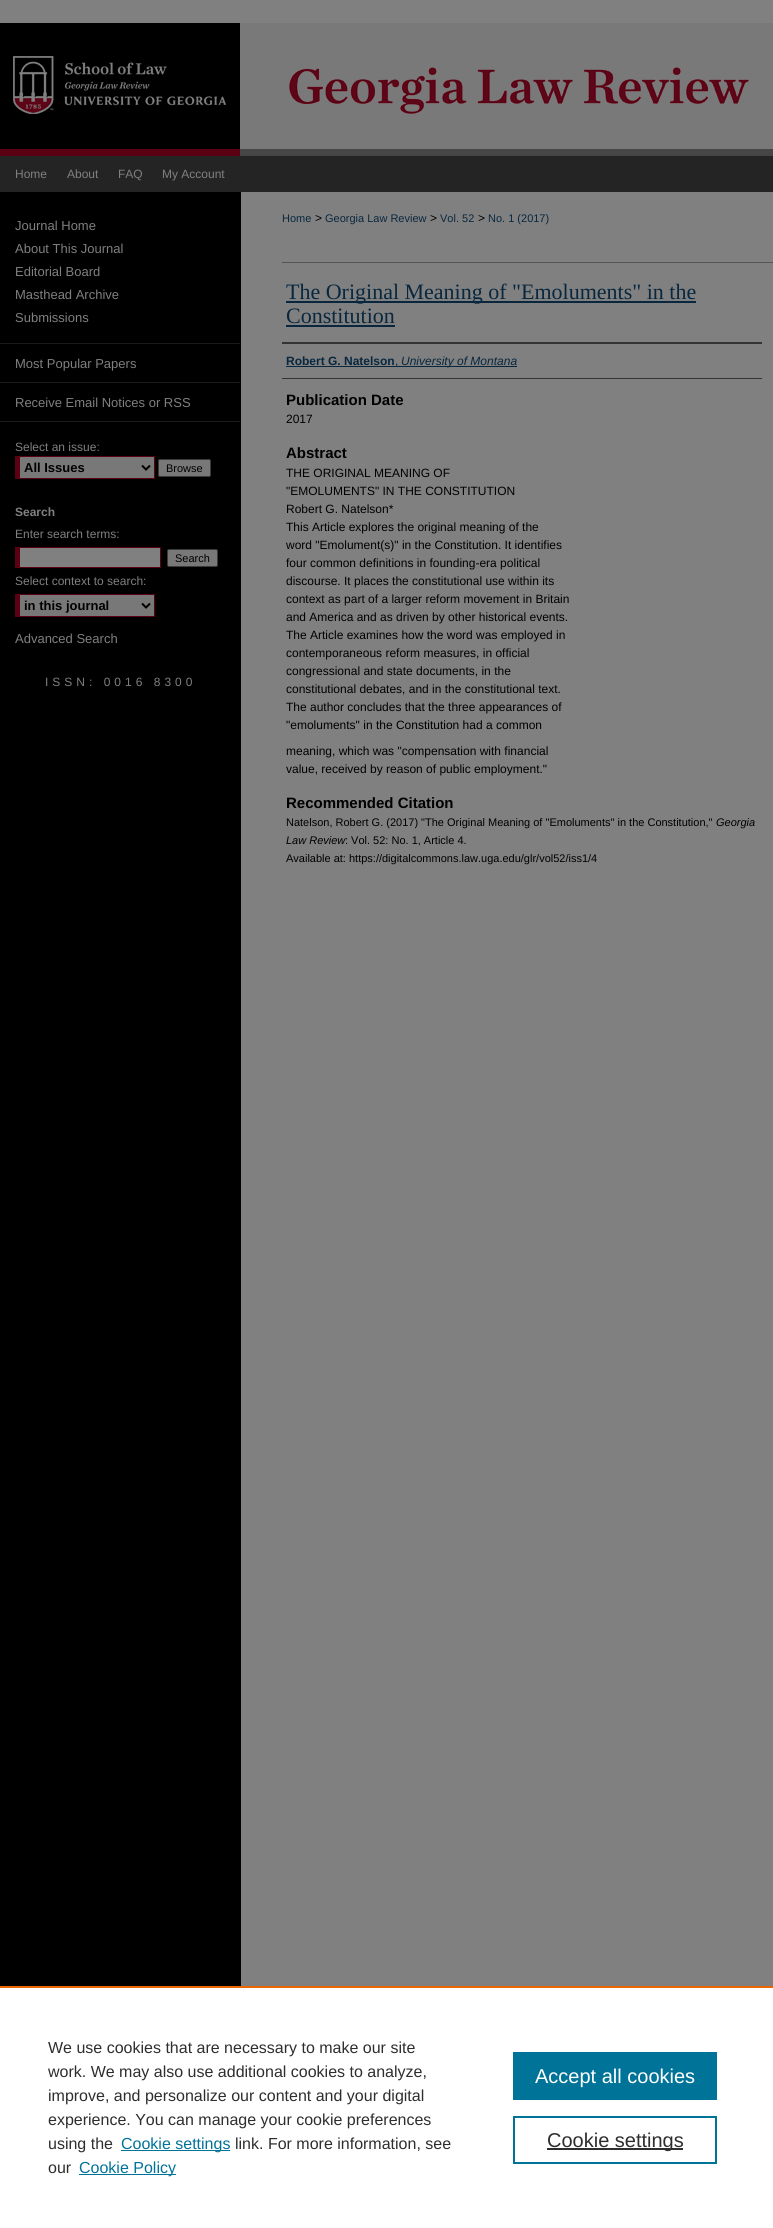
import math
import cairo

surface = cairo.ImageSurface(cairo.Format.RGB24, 773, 2228)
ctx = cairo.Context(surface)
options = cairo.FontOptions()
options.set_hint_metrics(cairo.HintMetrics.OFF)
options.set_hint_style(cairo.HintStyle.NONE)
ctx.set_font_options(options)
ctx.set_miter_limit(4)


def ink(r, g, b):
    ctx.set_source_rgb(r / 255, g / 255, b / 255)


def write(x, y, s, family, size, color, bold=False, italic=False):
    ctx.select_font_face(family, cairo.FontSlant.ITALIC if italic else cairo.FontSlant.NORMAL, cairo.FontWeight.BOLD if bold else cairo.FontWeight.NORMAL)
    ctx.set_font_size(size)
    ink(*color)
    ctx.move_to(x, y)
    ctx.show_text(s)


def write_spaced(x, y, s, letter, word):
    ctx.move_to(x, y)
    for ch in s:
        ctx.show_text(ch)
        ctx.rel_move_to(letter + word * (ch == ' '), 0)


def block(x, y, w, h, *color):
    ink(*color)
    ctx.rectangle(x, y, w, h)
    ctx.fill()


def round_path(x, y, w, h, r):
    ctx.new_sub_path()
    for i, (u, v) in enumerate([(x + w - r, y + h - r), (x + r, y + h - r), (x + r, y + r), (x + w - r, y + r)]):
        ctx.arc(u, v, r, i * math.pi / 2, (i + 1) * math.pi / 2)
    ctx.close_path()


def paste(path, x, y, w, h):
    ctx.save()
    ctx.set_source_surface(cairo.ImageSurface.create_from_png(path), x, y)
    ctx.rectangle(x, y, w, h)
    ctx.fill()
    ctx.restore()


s1 = dict(family="Liberation Sans", size=12, color=(128, 128, 128))
s2 = dict(family="Liberation Sans", size=13, color=(128, 128, 128))
s3 = dict(family="Liberation Sans", size=13, color=(0, 0, 0), bold=True)
s4 = dict(family="Liberation Sans", size=11, color=(0, 0, 0))
s5 = dict(family="Liberation Sans", size=12, color=(128, 128, 128), bold=True)
s6 = dict(family="Liberation Sans", size=11, color=(8, 39, 62))
s7 = dict(family="Liberation Sans", size=12, color=(0, 0, 0))
s8 = dict(family="Liberation Serif", size=22, color=(8, 39, 62))
s9 = dict(family="Liberation Sans", size=12, color=(8, 39, 62), bold=True)
s10 = dict(family="Liberation Sans", size=12, color=(8, 39, 62))
s11 = dict(family="Liberation Sans", size=12, color=(8, 39, 62), italic=True)
s12 = dict(family="Liberation Sans", size=15, color=(0, 0, 0), bold=True)
s13 = dict(family="Liberation Sans", size=11, color=(0, 0, 0), italic=True)
s14 = dict(family="Liberation Sans", size=16, color=(46, 46, 46))
s15 = dict(family="Liberation Sans", size=16, color=(0, 115, 152))
s16 = dict(family="Liberation Sans", size=20, color=(255, 255, 255))
s17 = dict(family="Liberation Sans", size=20, color=(46, 46, 46))

ink(128, 128, 128)
ctx.paint()
paste("pic1.png", 0, 23, 773, 133)
block(0, 156, 773, 36, 36, 36, 36)
write(15, 178, "Home", **s1)
write(67, 178, "About", **s1)
write(118, 178, "FAQ", **s1)
write(162, 178, "My Account", **s1)
block(0, 192, 241, 1794, 0, 0, 0)
write(15, 230, "Journal Home", **s2)
write(15, 253, "About This Journal", **s2)
write(15, 276, "Editorial Board", **s2)
write(15, 299, "Masthead Archive", **s2)
write(15, 322, "Submissions", **s2)
block(0, 343, 240, 1, 26, 26, 26)
block(0, 382, 240, 1, 26, 26, 26)
write(15, 368, "Most Popular Papers", **s2)
block(0, 421, 240, 1, 26, 26, 26)
write(15, 407, "Receive Email Notices or RSS", **s2)
write(15, 451, "Select an issue:", **s1)
block(20, 457, 134, 21, 120, 120, 120)
block(15, 456, 140, 1, 91, 0, 18)
block(154, 456, 1, 23, 91, 0, 18)
block(15, 478, 140, 1, 91, 0, 18)
block(15, 456, 5, 23, 91, 0, 18)
ctx.new_path()
ctx.move_to(142, 465.5)
ctx.line_to(146, 469.5)
ctx.line_to(150, 465.5)
ink(0, 0, 0)
ctx.stroke()
write(24, 472, "All Issues", **s3)
ink(120, 120, 120)
round_path(158.5, 459.5, 52, 17, 1.5)
ctx.fill_preserve()
ink(59, 59, 59)
ctx.set_line_width(1)
ctx.stroke()
write(166, 472, "Browse", **s4)
write(15, 516, "Search", **s5)
write(15, 538, "Enter search terms:", **s1)
block(20, 548, 140, 19, 128, 128, 128)
block(15, 547, 146, 1, 91, 0, 18)
block(160, 547, 1, 21, 91, 0, 18)
block(15, 567, 146, 1, 91, 0, 18)
block(15, 547, 5, 21, 91, 0, 18)
ink(120, 120, 120)
round_path(167.5, 549.5, 50, 17, 1.5)
ctx.fill_preserve()
ink(59, 59, 59)
ctx.stroke()
write(175, 562, "Search", **s4)
write(15, 585, "Select context to search:", **s1)
block(20, 595, 134, 21, 120, 120, 120)
block(15, 594, 140, 1, 91, 0, 18)
block(154, 594, 1, 23, 91, 0, 18)
block(15, 616, 140, 1, 91, 0, 18)
block(15, 594, 5, 23, 91, 0, 18)
ctx.new_path()
ctx.move_to(142, 603.5)
ctx.line_to(146, 607.5)
ctx.line_to(150, 603.5)
ink(0, 0, 0)
ctx.set_line_width(2)
ctx.stroke()
write(24, 610, "in this journal", **s3)
write(15, 643, "Advanced Search", **s2)
ctx.set_font_size(12)
write_spaced(45, 686, "ISSN: 0016 8300", 4, 0)
write(282, 222, "Home", **s6)
write(315, 222, ">", **s7)
write(325, 222, "Georgia Law Review", **s6)
write(430, 222, ">", **s7)
write(440, 222, "Vol. 52", **s6)
write(478, 222, ">", **s7)
write(488, 222, "No. 1 (2017)", **s6)
block(282, 262, 491, 1, 85, 85, 85)
block(286, 301, 410, 2, 8, 39, 62)
write(286, 299, "The Original Meaning of \"Emoluments\" in the", **s8)
write(286, 323, "Constitution", **s8)
block(286, 325, 109, 2, 8, 39, 62)
block(282, 342, 480, 2, 51, 51, 51)
block(282, 378, 480, 1, 51, 51, 51)
write(286, 365, "Robert G. Natelson", **s9)
block(286, 366, 231, 1, 8, 39, 62)
write(395, 365, ",", **s10)
write(401, 365, "University of Montana", **s11)
write(286, 405, "Publication Date", **s12)
write(286, 423, "2017", **s7)
write(286, 458, "Abstract", **s12)
write(286, 477, "THE ORIGINAL MEANING OF", **s7)
write(286, 495, "\"EMOLUMENTS\" IN THE CONSTITUTION", **s7)
write(286, 513, "Robert G. Natelson*", **s7)
write(286, 531, "This Article explores the original meaning of the", **s7)
write(286, 549, "word \"Emolument(s)\" in the Constitution. It identifies", **s7)
write(286, 567, "four common definitions in founding-era political", **s7)
write(286, 585, "discourse. It places the constitutional use within its", **s7)
write(286, 603, "context as part of a larger reform movement in Britain", **s7)
write(286, 621, "and America and as driven by other historical events.", **s7)
write(286, 639, "The Article examines how the word was employed in", **s7)
write(286, 657, "contemporaneous reform measures, in official", **s7)
write(286, 675, "congressional and state documents, in the", **s7)
write(286, 693, "constitutional debates, and in the constitutional text.", **s7)
write(286, 711, "The author concludes that the three appearances of", **s7)
write(286, 729, "\"emoluments\" in the Constitution had a common", **s7)
write(286, 755, "meaning, which was \"compensation with financial", **s7)
write(286, 773, "value, received by reason of public employment.\"", **s7)
write(286, 808, "Recommended Citation", **s12)
write(286, 826, "Natelson, Robert G. (2017) \"The Original Meaning of \"Emoluments\" in the Constitution,\"", **s4)
write(716, 826, "Georgia", **s13)
write(286, 844, "Law Review", **s13)
write(345, 844, ": Vol. 52: No. 1, Article 4.", **s4)
write(286, 862, "Available at: https://digitalcommons.law.uga.edu/glr/vol52/iss1/4", **s4)
block(0, 1988, 773, 240, 255, 255, 255)
block(0, 1986, 773, 2, 235, 101, 0)
write(48, 2053, "We use cookies that are necessary to make our site", **s14)
write(48, 2077, "work. We may also use additional cookies to analyze,", **s14)
write(48, 2101, "improve, and personalize our content and your digital", **s14)
write(48, 2125, "experience. You can manage your cookie preferences", **s14)
write(48, 2149, "using the", **s14)
block(121, 2150, 109, 1, 0, 115, 152)
write(121, 2149, "Cookie settings", **s15)
write(235, 2149, "link. For more information, see", **s14)
write(48, 2173, "our", **s14)
block(79, 2174, 97, 1, 0, 115, 152)
write(79, 2173, "Cookie Policy", **s15)
block(513, 2052, 204, 48, 0, 115, 152)
write(535, 2083, "Accept all cookies", **s16)
ctx.rectangle(514, 2117, 202, 46)
ink(0, 115, 152)
ctx.stroke()
block(547, 2148, 136, 2, 46, 46, 46)
write(547, 2147, "Cookie settings", **s17)
surface.write_to_png("screenshot.png")
